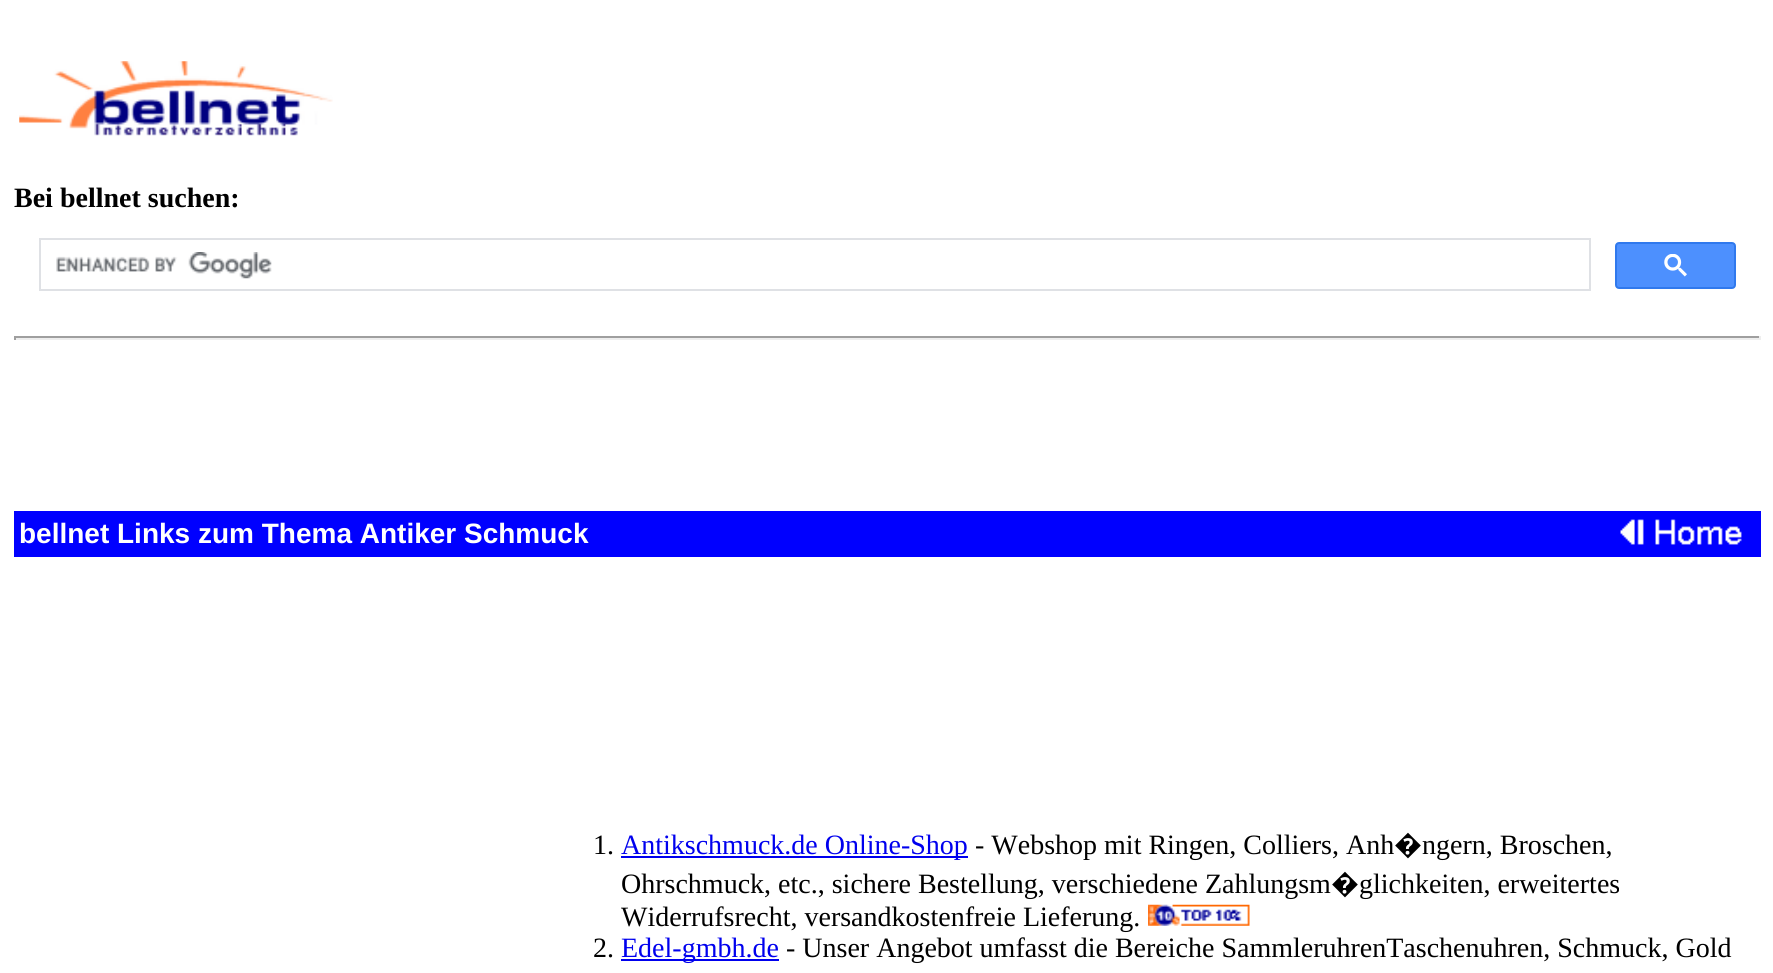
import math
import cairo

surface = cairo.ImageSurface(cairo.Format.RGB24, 1773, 973)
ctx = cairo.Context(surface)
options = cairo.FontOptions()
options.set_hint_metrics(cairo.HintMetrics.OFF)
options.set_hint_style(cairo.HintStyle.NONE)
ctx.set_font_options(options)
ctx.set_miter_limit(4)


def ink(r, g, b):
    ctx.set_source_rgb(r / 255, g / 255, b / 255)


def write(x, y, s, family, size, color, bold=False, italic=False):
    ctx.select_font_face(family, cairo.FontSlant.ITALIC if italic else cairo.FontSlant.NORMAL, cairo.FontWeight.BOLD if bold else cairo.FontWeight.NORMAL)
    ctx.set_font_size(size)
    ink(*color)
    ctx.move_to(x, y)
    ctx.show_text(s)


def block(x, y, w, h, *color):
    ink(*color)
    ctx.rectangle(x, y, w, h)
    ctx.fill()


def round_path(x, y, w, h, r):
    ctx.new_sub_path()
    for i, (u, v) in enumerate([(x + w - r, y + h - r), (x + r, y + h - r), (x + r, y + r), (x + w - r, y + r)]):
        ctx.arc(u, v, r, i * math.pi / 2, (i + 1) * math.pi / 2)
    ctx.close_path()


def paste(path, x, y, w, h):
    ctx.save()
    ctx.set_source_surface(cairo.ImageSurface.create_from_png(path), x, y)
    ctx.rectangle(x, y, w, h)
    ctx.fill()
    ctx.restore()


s1 = dict(family="Liberation Serif", size=28, color=(0, 0, 0), bold=True)
s2 = dict(family="Liberation Sans", size=28, color=(255, 255, 255), bold=True)
s3 = dict(family="Liberation Serif", size=28, color=(0, 0, 0))
s4 = dict(family="Liberation Serif", size=28, color=(0, 0, 238))
s5 = dict(family="Noto Sans", size=28, color=(0, 0, 0))

ink(255, 255, 255)
ctx.paint()
paste("pic1.png", 19, 61, 314, 75)
write(14, 207, "Bei bellnet suchen:", **s1)
ctx.rectangle(40, 239, 1550, 51)
ink(223, 225, 229)
ctx.stroke()
paste("pic2.png", 56, 252, 216, 27)
ink(77, 144, 254)
round_path(1616, 243, 119, 45, 3)
ctx.fill_preserve()
ink(48, 121, 237)
ctx.stroke()
paste("pic3.png", 1664, 254, 23, 23)
block(14, 336, 1747, 2, 159, 159, 159)
block(1759, 336, 2, 4, 238, 238, 238)
block(14, 338, 1747, 2, 238, 238, 238)
block(14, 336, 2, 4, 159, 159, 159)
block(14, 511, 1747, 46, 0, 0, 255)
write(19, 543, "bellnet Links zum Thema Antiker Schmuck", **s2)
paste("pic4.png", 1620, 519, 122, 26)
write(593, 854, "1.", **s3)
block(621, 856, 347, 2, 0, 0, 238)
write(621, 854, "Antikschmuck.de Online-Shop", **s4)
write(975, 854, "- Webshop mit Ringen, Colliers, Anh", **s3)
write(1394, 854, "�", **s5)
write(1422, 854, "ngern, Broschen,", **s3)
write(621, 893, "Ohrschmuck, etc., sichere Bestellung, verschiedene Zahlungsm", **s3)
write(1331, 893, "�", **s5)
write(1359, 893, "glichkeiten, erweitertes", **s3)
write(621, 926, "Widerrufsrecht, versandkostenfreie Lieferung.", **s3)
paste("pic5.png", 1148, 904, 102, 22)
write(593, 957, "2.", **s3)
block(621, 959, 158, 2, 0, 0, 238)
write(621, 957, "Edel-gmbh.de", **s4)
write(786, 957, "- Unser Angebot umfasst die Bereiche SammleruhrenTaschenuhren, Schmuck, Gold", **s3)
surface.write_to_png("screenshot.png")
